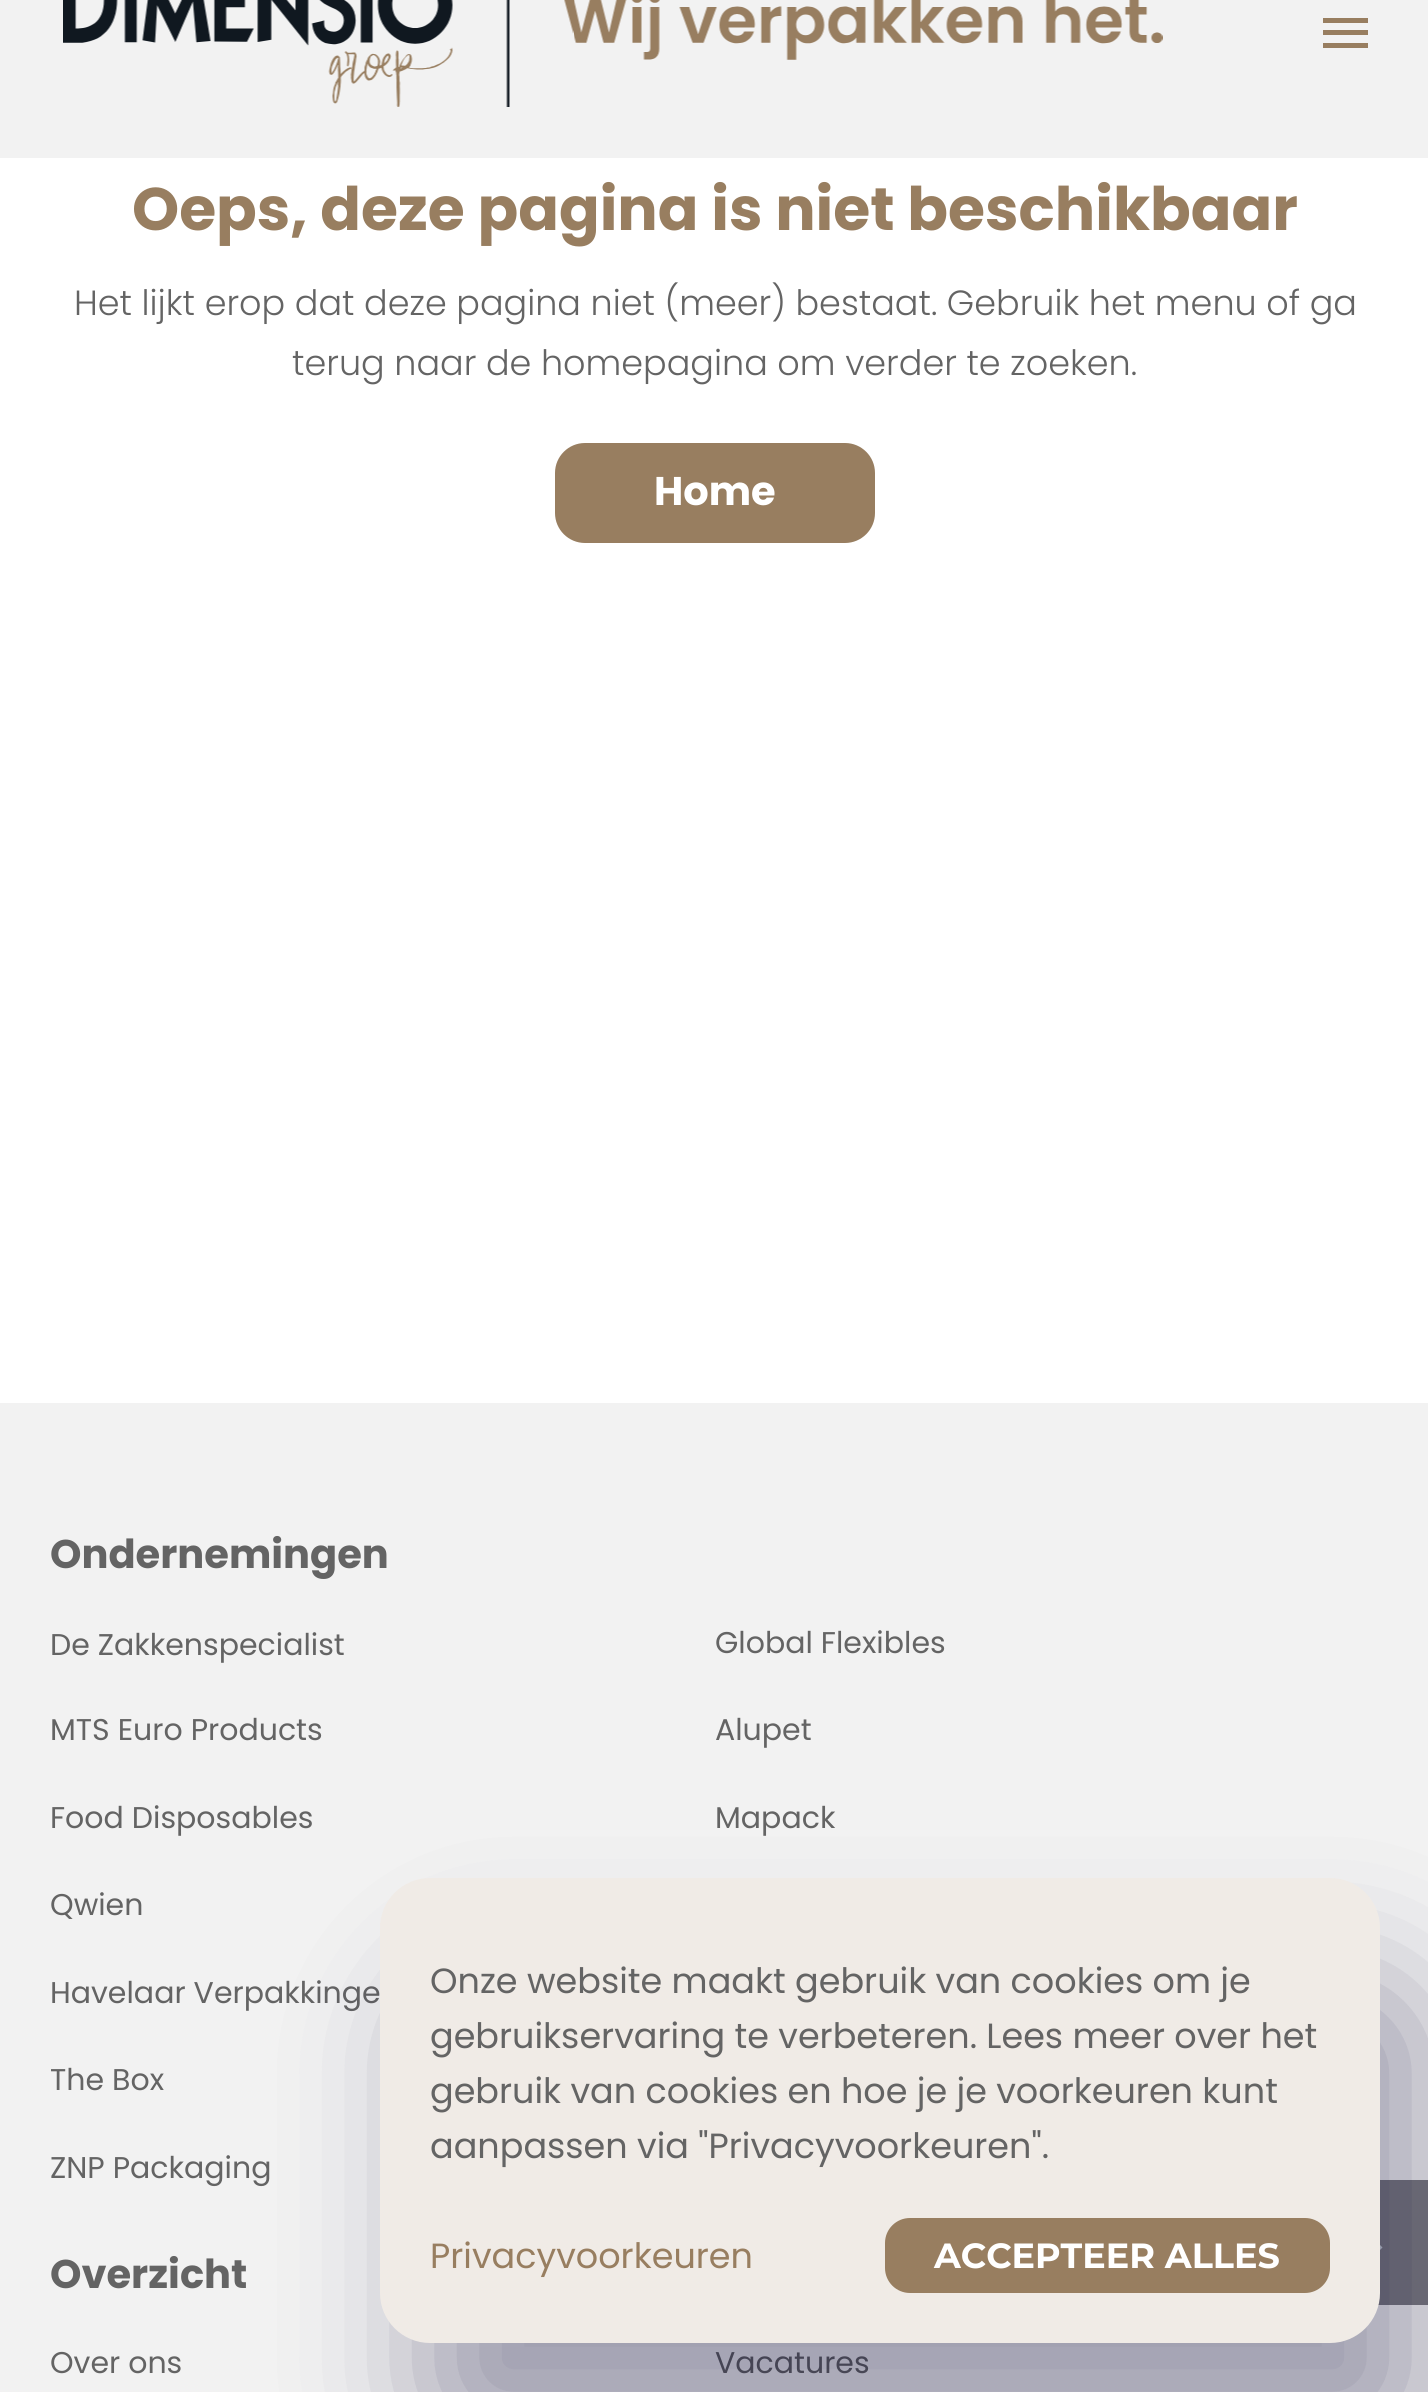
import math
import cairo

surface = cairo.ImageSurface(cairo.Format.RGB24, 1428, 2392)
ctx = cairo.Context(surface)
options = cairo.FontOptions()
options.set_hint_metrics(cairo.HintMetrics.OFF)
options.set_hint_style(cairo.HintStyle.NONE)
ctx.set_font_options(options)
ctx.set_miter_limit(4)


def ink(r, g, b):
    ctx.set_source_rgb(r / 255, g / 255, b / 255)


def write(x, y, s, family, size, color, bold=False, italic=False):
    ctx.select_font_face(family, cairo.FontSlant.ITALIC if italic else cairo.FontSlant.NORMAL, cairo.FontWeight.BOLD if bold else cairo.FontWeight.NORMAL)
    ctx.set_font_size(size)
    ink(*color)
    ctx.move_to(x, y)
    ctx.show_text(s)


def block(x, y, w, h, *color):
    ink(*color)
    ctx.rectangle(x, y, w, h)
    ctx.fill()


def round_path(x, y, w, h, r):
    ctx.new_sub_path()
    for i, (u, v) in enumerate([(x + w - r, y + h - r), (x + r, y + h - r), (x + r, y + r), (x + w - r, y + r)]):
        ctx.arc(u, v, r, i * math.pi / 2, (i + 1) * math.pi / 2)
    ctx.close_path()


def blur_box(x, y, w, h, r, blur, alpha):
    ctx.push_group_with_content(cairo.Content.ALPHA)
    ctx.set_operator(cairo.Operator.SOURCE)
    for i in range(15, -16, -2):
        e = blur * i / 6
        if min(w, h) + 2 * e > 0:
            ctx.set_source_rgba(0, 0, 0, alpha * math.erfc((i - 1) / 8.5) / 2)
            round_path(x - e, y - e, w + 2 * e, h + 2 * e, max(0, min(r + e + blur * .6, min(w, h) / 2 + e)))
            ctx.fill()
    ctx.mask(ctx.pop_group())


def paste(path, x, y, w, h):
    ctx.save()
    ctx.set_source_surface(cairo.ImageSurface.create_from_png(path), x, y)
    ctx.rectangle(x, y, w, h)
    ctx.fill()
    ctx.restore()


s1 = dict(family="Poppins", size=60, color=(152, 126, 96), bold=True)
s2 = dict(family="Poppins Light", size=35, color=(100, 100, 100))
s3 = dict(family="Poppins", size=40, color=(255, 255, 255), bold=True)
s4 = dict(family="Poppins", size=40, color=(100, 100, 100), bold=True)
s5 = dict(family="Poppins", size=30, color=(100, 100, 100))
s6 = dict(family="Poppins", size=35, color=(100, 100, 100))
s7 = dict(family="Poppins", size=35, color=(152, 126, 96))
s8 = dict(family="Montserrat", size=35, color=(255, 255, 255), bold=True)

ink(255, 255, 255)
ctx.paint()
block(0, 0, 1428, 158, 242, 242, 242)
paste("pic1.png", 63, 0, 1100, 107)
block(1323, 18, 45, 5, 152, 126, 96)
block(1323, 30, 45, 5, 152, 126, 96)
block(1323, 43, 45, 5, 152, 126, 96)
write(132, 230, "Oeps, deze pagina is niet beschikbaar", **s1)
write(74, 315, "Het lijkt erop dat deze pagina niet (meer) bestaat. Gebruik het menu of ga", **s2)
write(292, 375, "terug naar de homepagina om verder te zoeken.", **s2)
ink(152, 126, 96)
round_path(555, 443, 320, 100, 30)
ctx.fill()
write(654, 505, "Home", **s3)
block(0, 1403, 1428, 989, 242, 242, 242)
write(50, 1568, "Ondernemingen", **s4)
write(50, 1655, "De Zakkenspecialist", **s5)
write(50, 1740, "MTS Euro Products", **s5)
write(50, 1828, "Food Disposables", **s5)
write(50, 1915, "Qwien", **s5)
write(50, 2003, "Havelaar Verpakkinge", **s5)
write(50, 2090, "The Box", **s5)
write(50, 2178, "ZNP Packaging", **s5)
write(715, 1653, "Global Flexibles", **s5)
write(715, 1740, "Alupet", **s5)
write(715, 1828, "Mapack", **s5)
write(50, 2288, "Overzicht", **s4)
write(50, 2373, "Over ons", **s5)
write(715, 2373, "Vacatures", **s5)
block(1378, 2180, 50, 125, 124, 124, 129)
ink(198, 206, 212)
ctx.new_path()
ctx.move_to(1356, 2251)
ctx.line_to(1367.5, 2239.5)
ctx.line_to(1379, 2251)
ctx.line_to(1382.5, 2247.5)
ctx.line_to(1367.5, 2232.5)
ctx.line_to(1352.5, 2247.5)
ctx.close_path()
ctx.fill()
ink(4, 1, 49)
blur_box(423, 1983, 1000, 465, 50, 67.5, 0.35)
ink(240, 235, 230)
round_path(380, 1878, 1000, 465, 50)
ctx.fill()
write(430, 1993, "Onze website maakt gebruik van cookies om je", **s6)
write(430, 2048, "gebruikservaring te verbeteren. Lees meer over het", **s6)
write(430, 2103, "gebruik van cookies en hoe je je voorkeuren kunt", **s6)
write(430, 2158, "aanpassen via \"Privacyvoorkeuren\".", **s6)
write(430, 2268, "Privacyvoorkeuren", **s7)
round_path(887.5, 2220.5, 440, 70, 22.5)
ctx.fill_preserve()
ctx.set_line_width(5)
ctx.stroke()
write(934, 2268, "ACCEPTEER ALLES", **s8)
surface.write_to_png("screenshot.png")
